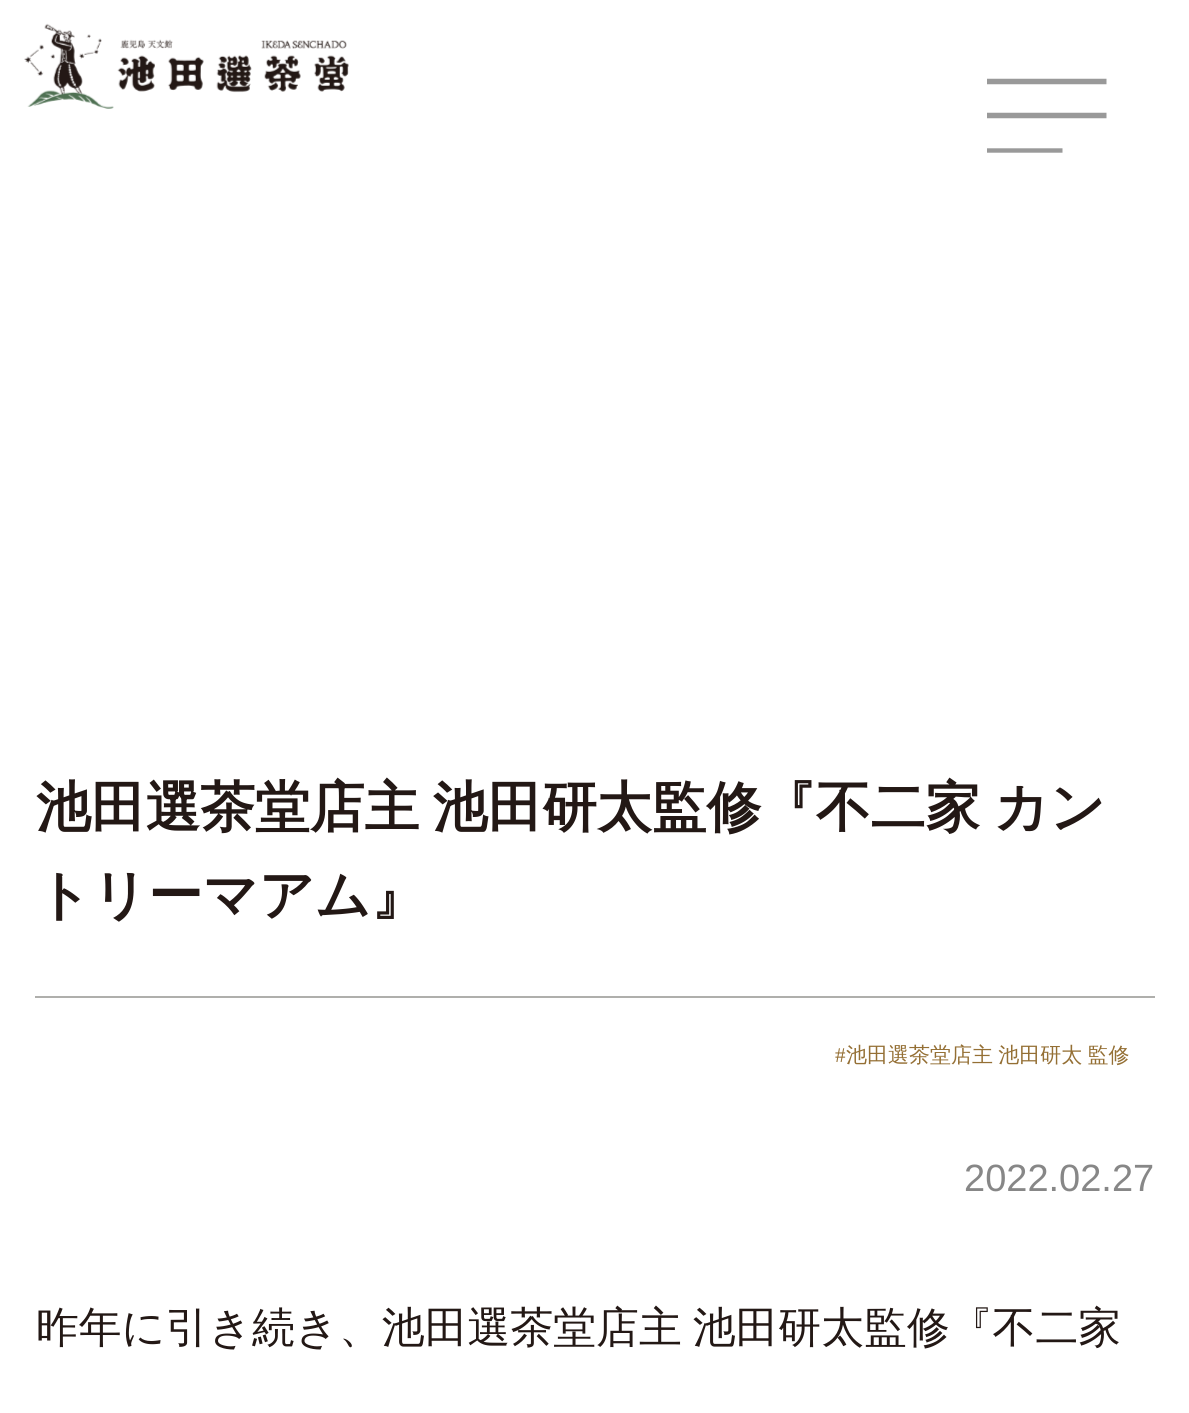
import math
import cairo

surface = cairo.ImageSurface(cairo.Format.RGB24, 1189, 1413)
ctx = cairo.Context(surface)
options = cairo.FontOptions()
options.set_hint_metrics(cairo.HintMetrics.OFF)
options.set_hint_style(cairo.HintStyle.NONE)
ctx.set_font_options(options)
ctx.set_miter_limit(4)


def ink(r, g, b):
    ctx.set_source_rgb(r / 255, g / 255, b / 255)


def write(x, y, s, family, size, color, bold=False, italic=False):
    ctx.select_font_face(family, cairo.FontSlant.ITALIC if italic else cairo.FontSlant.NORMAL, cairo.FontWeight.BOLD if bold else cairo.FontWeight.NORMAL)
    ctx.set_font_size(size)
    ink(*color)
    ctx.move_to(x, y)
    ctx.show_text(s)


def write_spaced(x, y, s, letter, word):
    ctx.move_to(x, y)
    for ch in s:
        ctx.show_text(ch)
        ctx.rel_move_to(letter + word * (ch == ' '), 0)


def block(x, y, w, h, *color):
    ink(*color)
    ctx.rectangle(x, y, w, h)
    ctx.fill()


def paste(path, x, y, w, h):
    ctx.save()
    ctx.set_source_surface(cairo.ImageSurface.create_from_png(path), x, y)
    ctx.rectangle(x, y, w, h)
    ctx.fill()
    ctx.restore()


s1 = dict(family="WenQuanYi Zen Hei", size=54.75, color=(35, 24, 21), bold=True)
s2 = dict(family="Liberation Serif", size=21, color=(148, 111, 52))
s3 = dict(family="Liberation Sans", size=38, color=(135, 135, 135))

ink(255, 255, 255)
ctx.paint()
paste("pic1.png", 24, 23, 325, 86)
ctx.new_path()
ctx.move_to(987, 81.5)
ctx.line_to(1106.5, 81.5)
ink(153, 153, 153)
ctx.set_line_width(5.5)
ctx.stroke()
ctx.new_path()
ctx.move_to(987, 115.5)
ctx.line_to(1106.5, 115.5)
ctx.stroke()
ctx.new_path()
ctx.move_to(987, 150.5)
ctx.line_to(1062.5, 150.5)
ctx.set_line_width(4.4)
ctx.stroke()
block(35, 996, 1120, 2, 175, 175, 172)
ctx.select_font_face("WenQuanYi Zen Hei", cairo.FontSlant.NORMAL, cairo.FontWeight.BOLD)
ctx.set_font_size(54.75)
ink(35, 24, 21)
write_spaced(36, 826, "池田選茶堂店主 池田研太監修『不二家 カン", 0, -3)
write(36, 914, "トリーマアム』", **s1)
write(835, 1062, "#", **s2)
ctx.select_font_face("WenQuanYi Zen Hei Medium")
write_spaced(846, 1062, "池田選茶堂店主 池田研太 監修", 0, -1)
write(964, 1191, "2022.02.27", **s3)
ctx.select_font_face("WenQuanYi Zen Hei Medium")
ctx.set_font_size(42.85)
ink(35, 24, 21)
write_spaced(36, 1342, "昨年に引き続き、池田選茶堂店主 池田研太監修『不二家", 0, -2)
surface.write_to_png("screenshot.png")
